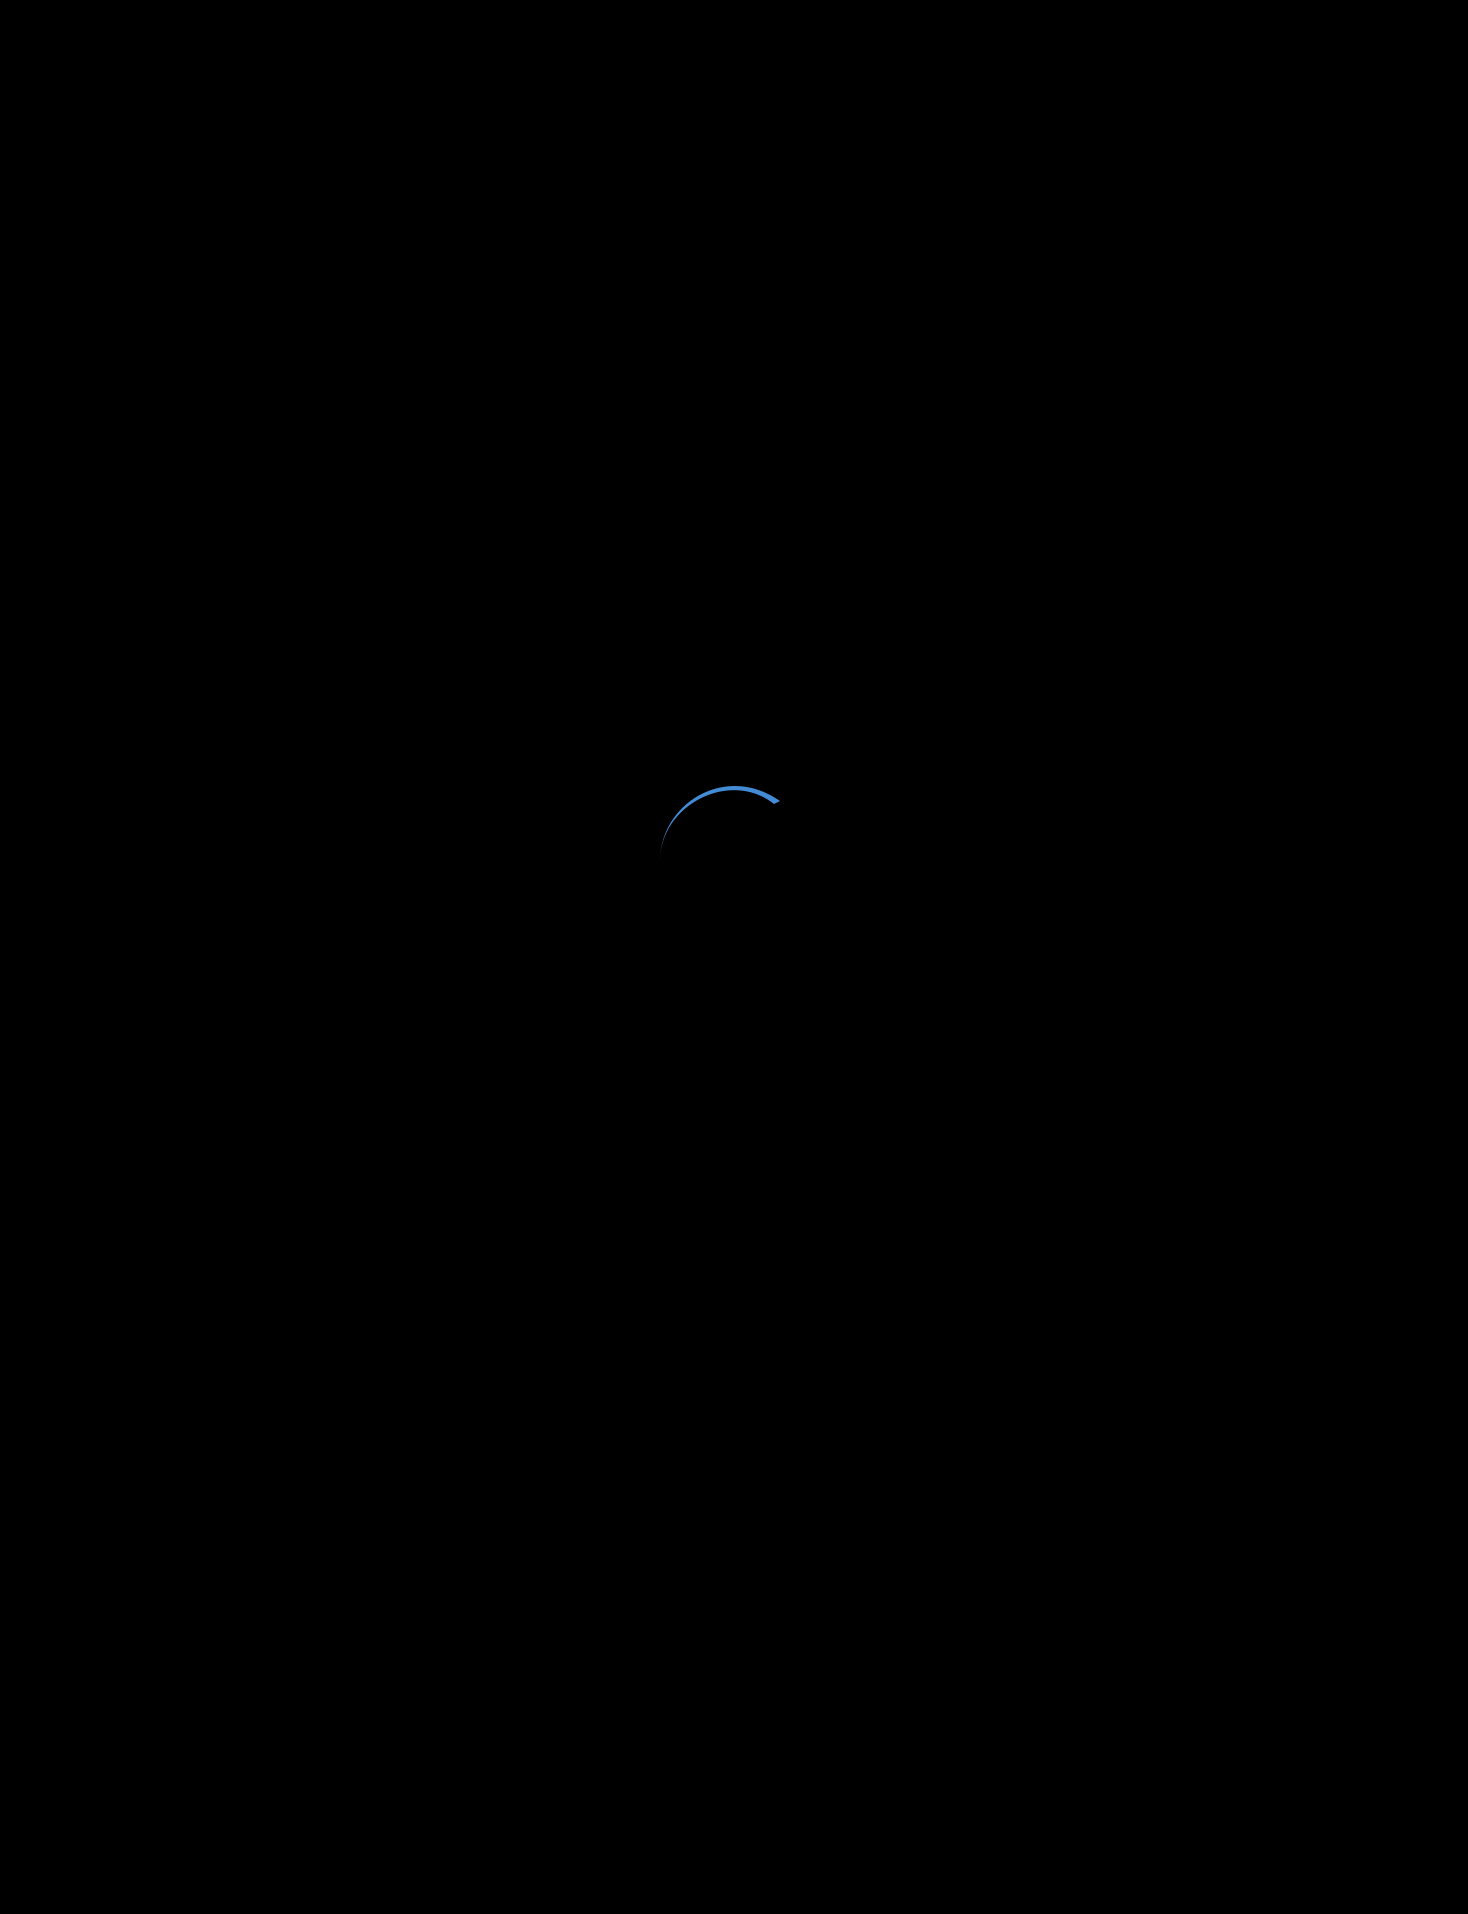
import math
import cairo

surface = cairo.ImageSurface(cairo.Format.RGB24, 1468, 1914)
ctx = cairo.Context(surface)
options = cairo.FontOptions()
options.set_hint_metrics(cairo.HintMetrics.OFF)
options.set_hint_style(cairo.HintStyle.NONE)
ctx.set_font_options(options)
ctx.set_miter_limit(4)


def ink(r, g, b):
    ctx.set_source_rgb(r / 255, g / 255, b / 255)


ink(0, 0, 0)
ctx.paint()
ink(68, 139, 214)
ctx.new_path()
ctx.move_to(735, 786)
ctx.curve_to(694, 786, 660, 820, 660, 861)
ctx.curve_to(660, 805, 730, 769, 774, 804)
ctx.line_to(780, 801)
ctx.curve_to(767, 792, 752, 786, 735, 786)
ctx.close_path()
ctx.fill()
surface.write_to_png("screenshot.png")
